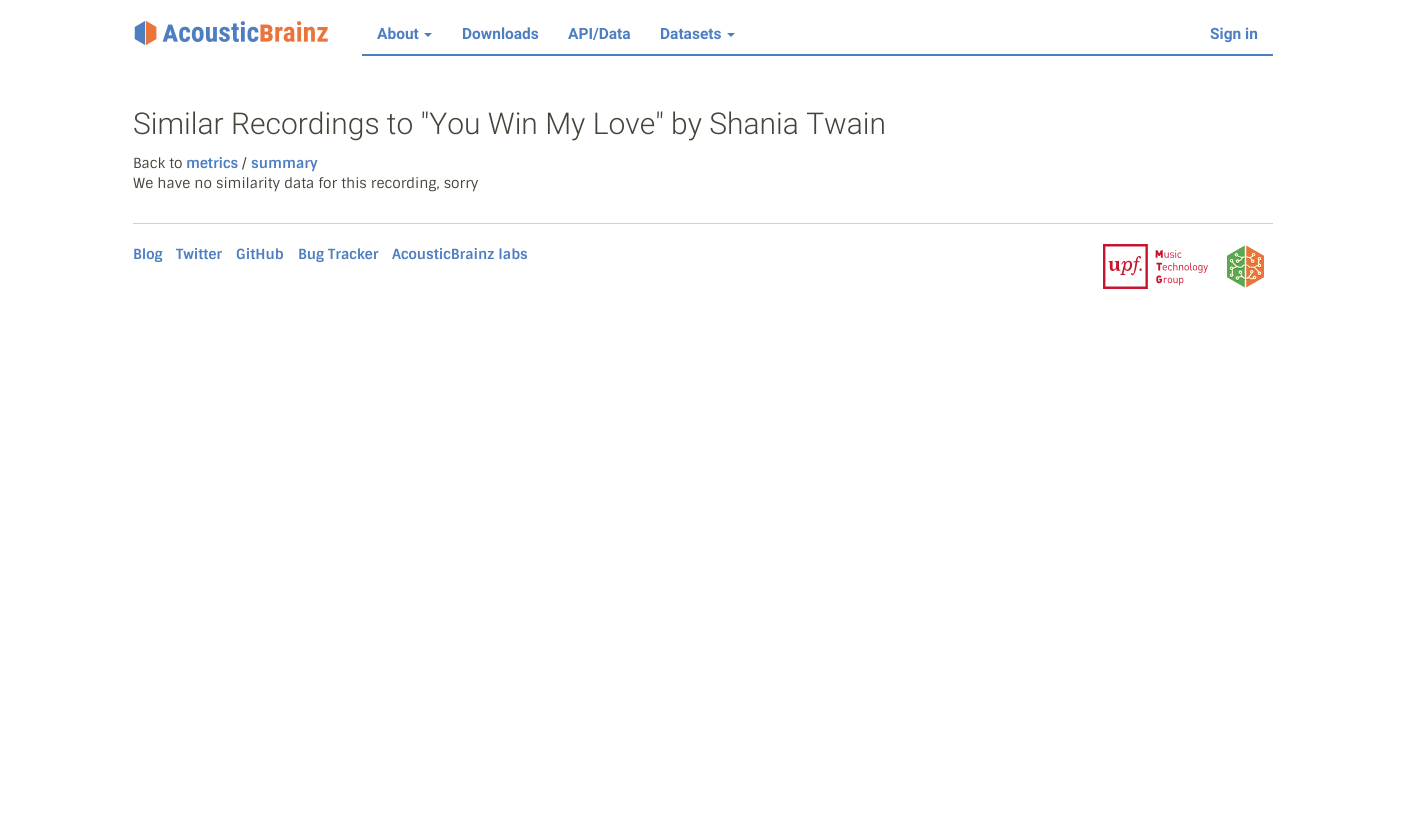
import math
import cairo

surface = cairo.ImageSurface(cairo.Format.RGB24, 1405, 840)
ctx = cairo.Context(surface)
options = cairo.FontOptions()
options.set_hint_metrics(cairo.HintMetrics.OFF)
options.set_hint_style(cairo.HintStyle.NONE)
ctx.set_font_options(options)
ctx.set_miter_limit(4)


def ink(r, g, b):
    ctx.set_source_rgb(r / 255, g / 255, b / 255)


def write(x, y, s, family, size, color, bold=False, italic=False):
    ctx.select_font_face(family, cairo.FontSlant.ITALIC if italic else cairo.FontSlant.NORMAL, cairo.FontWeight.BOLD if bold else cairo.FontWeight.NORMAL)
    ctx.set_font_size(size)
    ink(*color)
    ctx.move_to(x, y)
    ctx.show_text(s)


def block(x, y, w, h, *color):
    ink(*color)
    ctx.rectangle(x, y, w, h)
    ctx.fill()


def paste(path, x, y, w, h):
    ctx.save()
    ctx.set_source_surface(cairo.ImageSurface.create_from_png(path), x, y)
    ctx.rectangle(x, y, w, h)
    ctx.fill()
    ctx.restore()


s1 = dict(family="Roboto", size=15.5, color=(78, 126, 194), bold=True)
s2 = dict(family="Roboto Light", size=30, color=(70, 67, 58))
s3 = dict(family="Sintony", size=14, color=(70, 67, 58))
s4 = dict(family="Sintony", size=14, color=(78, 126, 194), bold=True)

ink(255, 255, 255)
ctx.paint()
paste("pic1.png", 134, 21, 194, 24)
block(362, 54, 911, 2, 78, 126, 194)
write(377, 39, "About", **s1)
ctx.new_path()
ctx.move_to(424, 33)
ctx.line_to(432, 33)
ctx.line_to(428, 37)
ctx.close_path()
ctx.fill()
write(462, 39, "Downloads", **s1)
write(568, 39, "API/Data", **s1)
write(660, 39, "Datasets", **s1)
ctx.new_path()
ctx.move_to(727, 33)
ctx.line_to(735, 33)
ctx.line_to(731, 37)
ctx.close_path()
ctx.fill()
write(1210, 39, "Sign in", **s1)
write(133, 134, "Similar Recordings to \"You Win My Love\" by Shania Twain", **s2)
write(133, 168, "Back to", **s3)
write(186, 168, "metrics", **s4)
write(242, 168, "/", **s3)
write(251, 168, "summary", **s4)
write(133, 188, "We have no similarity data for this recording, sorry", **s3)
block(133, 223, 1140, 1, 219, 204, 198)
write(133, 259, "Blog", **s4)
write(176, 259, "Twitter", **s4)
write(236, 259, "GitHub", **s4)
write(298, 259, "Bug Tracker", **s4)
write(392, 259, "AcousticBrainz labs", **s4)
paste("pic2.png", 1103, 244, 105, 45)
paste("pic3.png", 1227, 245, 37, 43)
surface.write_to_png("screenshot.png")
